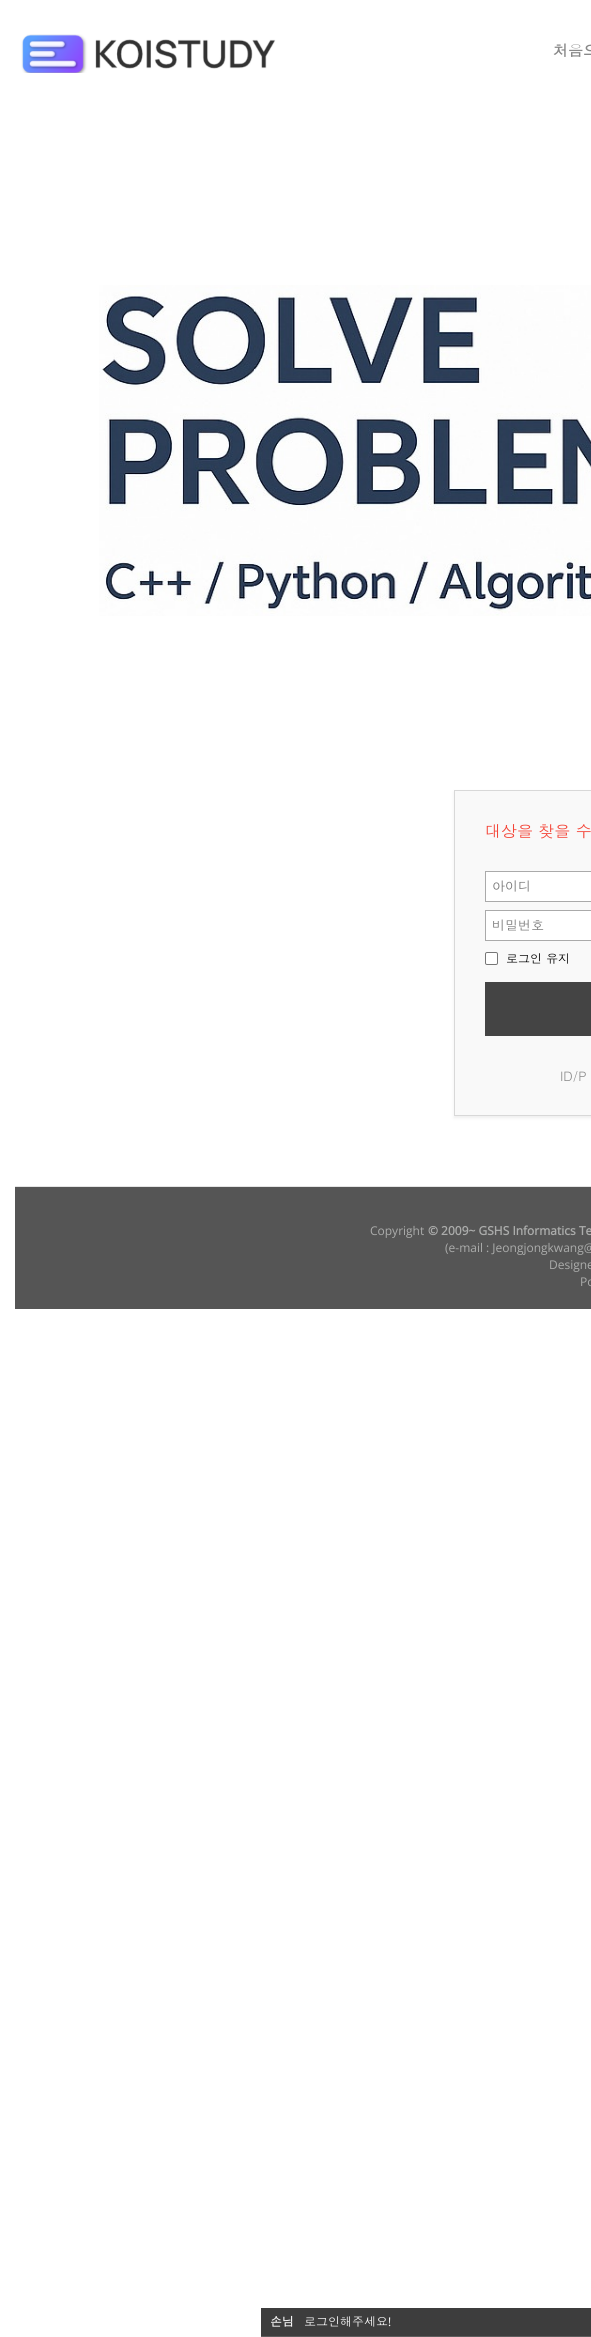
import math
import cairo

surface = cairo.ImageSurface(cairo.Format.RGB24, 591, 2337)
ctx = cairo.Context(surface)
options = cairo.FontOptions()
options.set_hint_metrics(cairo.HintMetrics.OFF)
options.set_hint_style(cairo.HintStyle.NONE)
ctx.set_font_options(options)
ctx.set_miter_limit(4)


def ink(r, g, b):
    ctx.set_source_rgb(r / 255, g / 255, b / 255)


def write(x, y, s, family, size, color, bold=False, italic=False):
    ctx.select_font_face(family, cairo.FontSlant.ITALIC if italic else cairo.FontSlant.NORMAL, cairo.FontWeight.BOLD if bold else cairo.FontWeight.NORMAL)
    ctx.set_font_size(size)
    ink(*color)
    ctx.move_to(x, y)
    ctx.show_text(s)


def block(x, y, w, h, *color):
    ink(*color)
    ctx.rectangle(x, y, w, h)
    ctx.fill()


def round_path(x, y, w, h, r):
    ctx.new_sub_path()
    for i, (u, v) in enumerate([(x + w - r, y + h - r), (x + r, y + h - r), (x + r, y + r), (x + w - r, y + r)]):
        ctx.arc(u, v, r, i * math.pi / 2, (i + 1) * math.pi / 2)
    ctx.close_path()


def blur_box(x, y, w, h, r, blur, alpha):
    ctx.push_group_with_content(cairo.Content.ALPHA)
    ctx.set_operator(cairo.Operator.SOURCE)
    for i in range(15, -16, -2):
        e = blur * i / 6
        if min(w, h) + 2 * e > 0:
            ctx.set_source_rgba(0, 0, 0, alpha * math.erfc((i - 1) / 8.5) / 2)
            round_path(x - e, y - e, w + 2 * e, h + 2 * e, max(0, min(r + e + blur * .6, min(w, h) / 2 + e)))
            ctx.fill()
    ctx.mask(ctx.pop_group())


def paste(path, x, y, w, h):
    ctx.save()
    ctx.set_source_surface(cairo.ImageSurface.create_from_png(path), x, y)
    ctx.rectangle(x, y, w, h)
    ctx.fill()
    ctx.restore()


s1 = dict(family="Dotum", size=15, color=(136, 136, 136), bold=True)
s2 = dict(family="Dotum", size=16, color=(244, 67, 54))
s3 = dict(family="Dotum", size=13, color=(117, 117, 117))
s4 = dict(family="Dotum", size=12, color=(0, 0, 0))
s5 = dict(family="Dotum", size=13, color=(136, 136, 136))
s6 = dict(family="Open Sans", size=12, color=(171, 172, 171))
s7 = dict(family="Open Sans", size=12, color=(171, 172, 171), bold=True)
s8 = dict(family="Dotum", size=12, color=(244, 244, 244), bold=True)
s9 = dict(family="Dotum", size=12, color=(255, 255, 255))
s10 = dict(family="Open Sans", size=12, color=(255, 255, 255))

ink(255, 255, 255)
ctx.paint()
paste("pic1.png", 21, 34, 255, 39)
write(553, 56, "처음으", **s1)
paste("pic2.png", 99, 285, 492, 331)
ink(238, 238, 238)
blur_box(454, 792, 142, 326, 0, 1.5, 1)
block(455, 792, 136, 323, 249, 249, 249)
ctx.rectangle(454.5, 790.5, 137, 325)
ink(216, 216, 216)
ctx.set_line_width(1)
ctx.stroke()
write(485, 837, "대상을 찾을 수", **s2)
ink(255, 255, 255)
ctx.rectangle(485.5, 871.5, 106, 30)
ctx.fill_preserve()
ink(170, 170, 170)
ctx.stroke()
write(492, 891, "아이디", **s3)
ink(255, 255, 255)
ctx.rectangle(485.5, 910.5, 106, 30)
ctx.fill_preserve()
ink(170, 170, 170)
ctx.stroke()
write(492, 930, "비밀번호", **s3)
ink(255, 255, 255)
round_path(485.5, 952.5, 12, 12, 1.5)
ctx.fill_preserve()
ink(118, 118, 118)
ctx.stroke()
write(506, 963, "로그인 유지", **s4)
block(485, 982, 106, 54, 68, 68, 68)
write(560, 1081, "ID/P", **s5)
block(15, 1186, 576, 1, 228, 228, 228)
block(15, 1187, 576, 122, 85, 85, 85)
write(370, 1235, "Copyright", **s6)
write(428, 1235, "© 2009~ GSHS Informatics Te", **s7)
write(445, 1252, "(e-mail : Jeongjongkwang@", **s6)
write(549, 1269, "Designe", **s6)
write(580, 1286, "Po", **s6)
block(261, 2308, 330, 28, 61, 61, 61)
block(261, 2336, 330, 1, 94, 94, 94)
write(270, 2326, "손님", **s8)
write(304, 2326, "로그인해주세요", **s9)
write(388, 2326, "!", **s10)
surface.write_to_png("screenshot.png")
